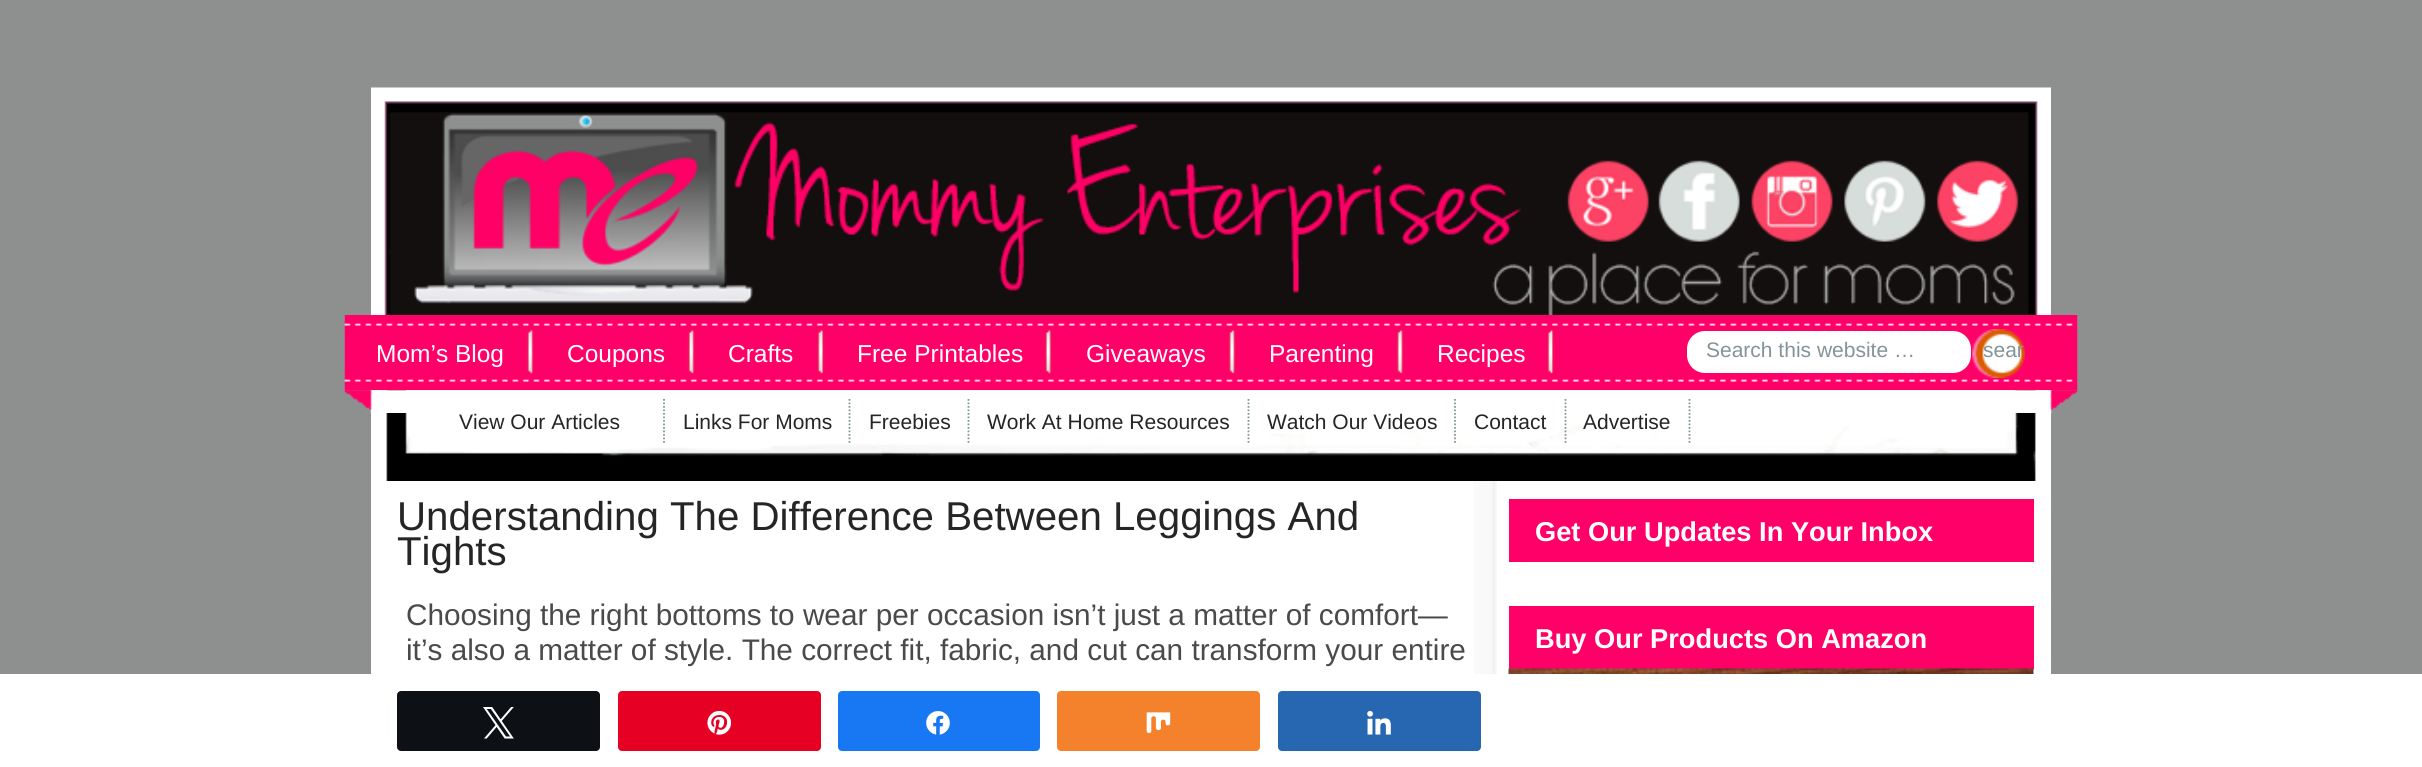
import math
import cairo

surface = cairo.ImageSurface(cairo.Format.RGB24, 2422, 767)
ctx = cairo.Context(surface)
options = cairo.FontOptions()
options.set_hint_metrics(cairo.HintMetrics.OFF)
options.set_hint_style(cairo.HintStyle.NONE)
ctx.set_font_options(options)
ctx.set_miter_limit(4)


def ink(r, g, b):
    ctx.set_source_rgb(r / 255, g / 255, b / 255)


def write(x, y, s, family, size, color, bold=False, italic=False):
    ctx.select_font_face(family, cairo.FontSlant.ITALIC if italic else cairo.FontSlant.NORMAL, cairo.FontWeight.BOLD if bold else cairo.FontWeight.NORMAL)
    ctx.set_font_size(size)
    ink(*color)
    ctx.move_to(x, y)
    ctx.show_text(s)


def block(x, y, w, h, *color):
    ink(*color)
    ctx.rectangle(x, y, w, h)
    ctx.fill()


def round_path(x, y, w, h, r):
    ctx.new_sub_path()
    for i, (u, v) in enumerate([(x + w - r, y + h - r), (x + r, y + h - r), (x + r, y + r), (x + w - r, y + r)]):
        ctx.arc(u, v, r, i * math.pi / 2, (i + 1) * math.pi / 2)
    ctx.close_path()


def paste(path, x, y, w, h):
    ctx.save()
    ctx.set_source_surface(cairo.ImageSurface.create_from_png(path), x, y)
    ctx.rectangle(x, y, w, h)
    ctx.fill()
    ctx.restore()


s1 = dict(family="Liberation Sans", size=24.5, color=(255, 255, 255))
s2 = dict(family="Liberation Sans", size=21, color=(130, 148, 151))
s3 = dict(family="Liberation Sans", size=21, color=(37, 37, 37))
s4 = dict(family="Liberation Sans", size=40.25, color=(37, 37, 37))
s5 = dict(family="Liberation Sans", size=29.75, color=(74, 74, 74))
s6 = dict(family="Liberation Sans", size=27.25, color=(255, 255, 255), bold=True)

ink(142, 144, 144)
ctx.paint()
paste("pic1.png", 371, 87, 1680, 228)
paste("pic2.png", 1567, 160, 82, 82)
paste("pic3.png", 1658, 160, 82, 82)
paste("pic4.png", 1751, 160, 82, 82)
paste("pic5.png", 1844, 160, 82, 82)
paste("pic6.png", 1936, 160, 83, 82)
paste("pic7.png", 344, 315, 1734, 76)
paste("pic15.png", 371, 390, 1680, 91)
paste("pic8.png", 344, 390, 1734, 23)
paste("pic9.png", 526, 329, 8, 45)
write(376, 362, "Mom’s Blog", **s1)
paste("pic9.png", 687, 329, 8, 45)
write(567, 362, "Coupons", **s1)
paste("pic10.png", 817, 329, 8, 45)
write(728, 362, "Crafts", **s1)
paste("pic11.png", 1044, 329, 8, 45)
write(857, 362, "Free Printables", **s1)
paste("pic12.png", 1228, 329, 8, 45)
write(1086, 362, "Giveaways", **s1)
paste("pic12.png", 1396, 329, 8, 45)
write(1269, 362, "Parenting", **s1)
paste("pic13.png", 1547, 329, 8, 45)
write(1437, 362, "Recipes", **s1)
round_path(1688, 332, 282, 40, 17)
ctx.fill_preserve()
ctx.stroke()
write(1706, 357, "Search this website …", **s2)
paste("pic14.png", 1972, 329, 53, 49)
write(1983, 357, "sear", **s2)
ctx.new_path()
ctx.move_to(664, 399)
ctx.line_to(664, 443)
ctx.set_line_width(1.8)
ctx.set_dash([1.75, 1.75])
ctx.stroke()
write(459, 429, "View Our Articles", **s3)
ctx.new_path()
ctx.move_to(849.5, 399)
ctx.line_to(849.5, 443)
ink(130, 148, 151)
ctx.stroke()
write(683, 429, "Links For Moms", **s3)
ctx.new_path()
ctx.move_to(968.5, 399)
ctx.line_to(968.5, 443)
ink(130, 148, 151)
ctx.stroke()
write(869, 429, "Freebies", **s3)
ctx.new_path()
ctx.move_to(1248.5, 399)
ctx.line_to(1248.5, 443)
ink(130, 148, 151)
ctx.stroke()
write(987, 429, "Work At Home Resources", **s3)
ctx.new_path()
ctx.move_to(1455, 399)
ctx.line_to(1455, 443)
ink(130, 148, 151)
ctx.stroke()
write(1267, 429, "Watch Our Videos", **s3)
ctx.new_path()
ctx.move_to(1565.5, 399)
ctx.line_to(1565.5, 443)
ink(130, 148, 151)
ctx.stroke()
write(1474, 429, "Contact", **s3)
ctx.new_path()
ctx.move_to(1689.5, 399)
ctx.line_to(1689.5, 443)
ink(130, 148, 151)
ctx.stroke()
write(1583, 429, "Advertise", **s3)
block(371, 481, 1680, 193, 255, 255, 255)
paste("pic16.png", 1474, 481, 23, 193)
write(397, 530, "Understanding The Difference Between Leggings And", **s4)
write(397, 565, "Tights", **s4)
write(406, 625, "Choosing the right bottoms to wear per occasion isn’t just a matter of comfort—", **s5)
write(406, 660, "it’s also a matter of style. The correct fit, fabric, and cut can transform your entire", **s5)
block(1509, 499, 525, 63, 255, 0, 104)
write(1535, 541, "Get Our Updates In Your Inbox", **s6)
block(1509, 606, 525, 63, 255, 0, 104)
write(1535, 648, "Buy Our Products On Amazon", **s6)
paste("pic17.png", 1508, 668, 526, 6)
block(0, 674, 2422, 93, 255, 255, 255)
ink(13, 16, 20)
round_path(398, 692, 201, 58, 3)
ctx.fill_preserve()
ctx.set_line_width(2)
ctx.set_dash([])
ctx.stroke()
paste("pic18.png", 483, 707, 31, 32)
ink(230, 0, 35)
round_path(619, 692, 201, 58, 3)
ctx.fill_preserve()
ctx.stroke()
paste("pic19.png", 707, 710, 25, 25)
ink(24, 119, 242)
round_path(839, 692, 200, 58, 3)
ctx.fill_preserve()
ctx.stroke()
paste("pic20.png", 926, 711, 24, 24)
ink(244, 129, 44)
round_path(1058, 692, 201, 58, 3)
ctx.fill_preserve()
ctx.stroke()
paste("pic21.png", 1146, 712, 25, 22)
ink(39, 103, 177)
round_path(1279, 692, 201, 58, 3)
ctx.fill_preserve()
ctx.stroke()
paste("pic22.png", 1367, 711, 24, 24)
surface.write_to_png("screenshot.png")
